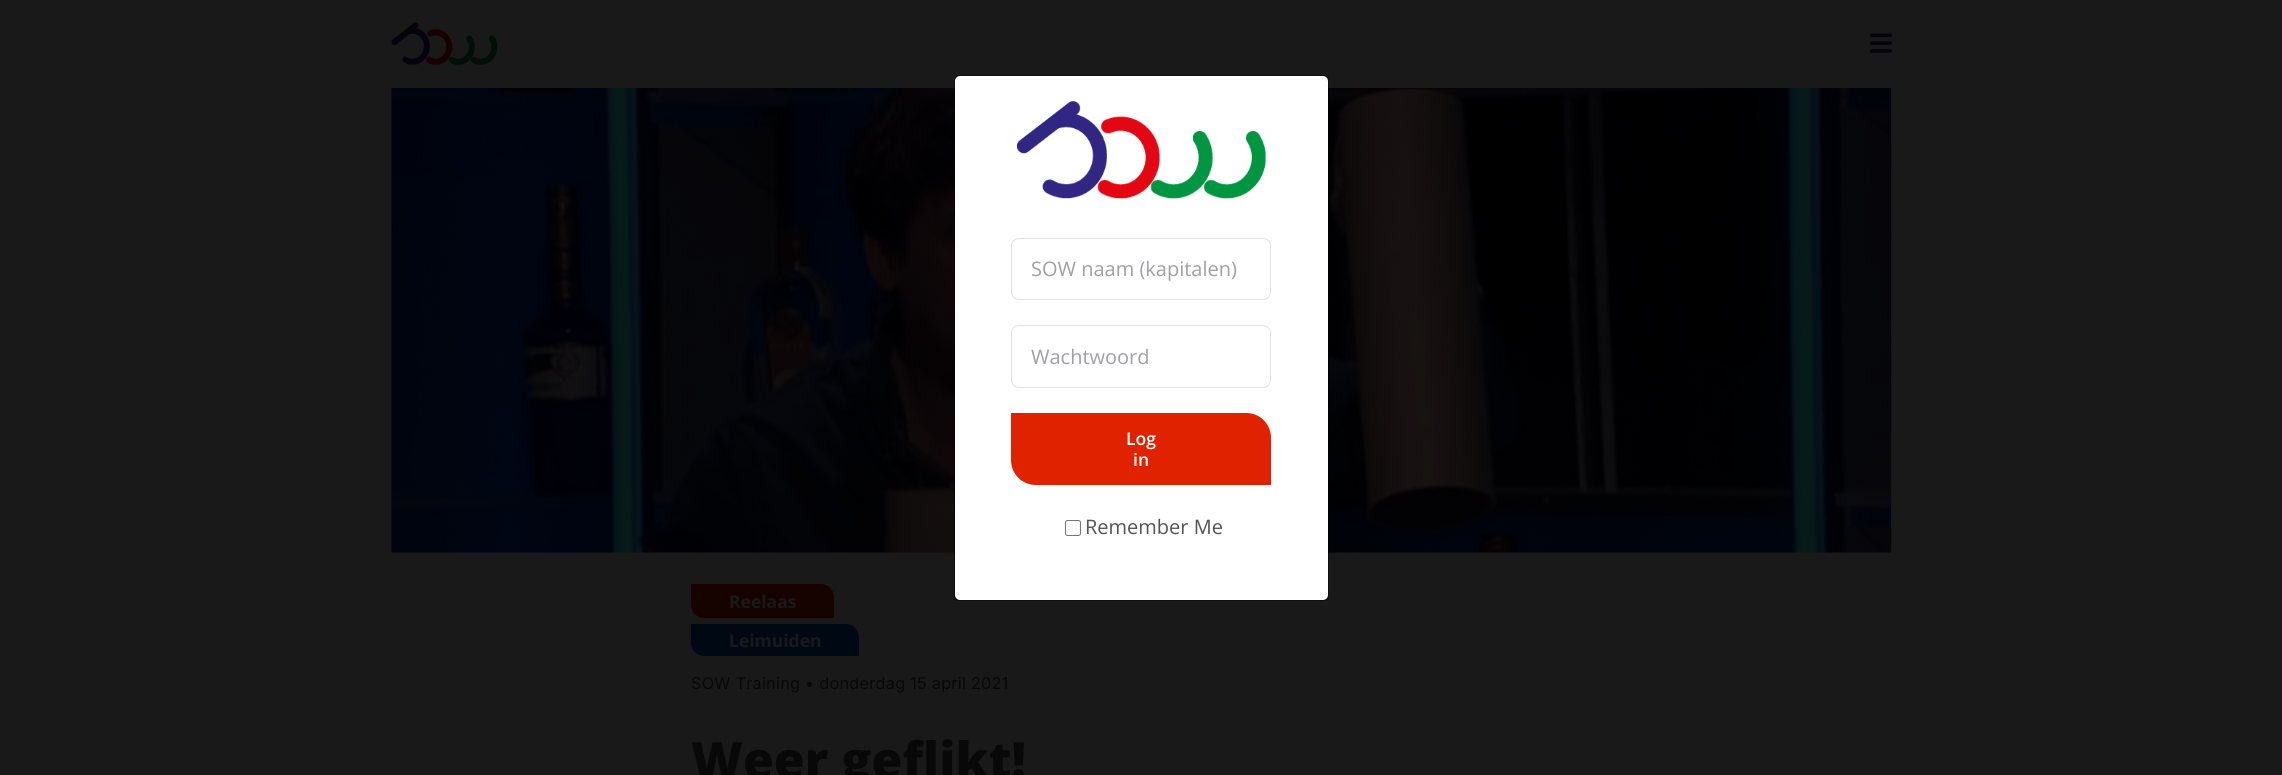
import math
import cairo

surface = cairo.ImageSurface(cairo.Format.RGB24, 2282, 775)
ctx = cairo.Context(surface)
options = cairo.FontOptions()
options.set_hint_metrics(cairo.HintMetrics.OFF)
options.set_hint_style(cairo.HintStyle.NONE)
ctx.set_font_options(options)
ctx.set_miter_limit(4)


def ink(r, g, b):
    ctx.set_source_rgb(r / 255, g / 255, b / 255)


def write(x, y, s, family, size, color, bold=False, italic=False):
    ctx.select_font_face(family, cairo.FontSlant.ITALIC if italic else cairo.FontSlant.NORMAL, cairo.FontWeight.BOLD if bold else cairo.FontWeight.NORMAL)
    ctx.set_font_size(size)
    ink(*color)
    ctx.move_to(x, y)
    ctx.show_text(s)


def write_spaced(x, y, s, letter, word):
    ctx.move_to(x, y)
    for ch in s:
        ctx.show_text(ch)
        ctx.rel_move_to(letter + word * (ch == ' '), 0)


def round_path(x, y, w, h, r):
    ctx.new_sub_path()
    for i, (u, v) in enumerate([(x + w - r, y + h - r), (x + r, y + h - r), (x + r, y + r), (x + w - r, y + r)]):
        ctx.arc(u, v, r, i * math.pi / 2, (i + 1) * math.pi / 2)
    ctx.close_path()


def blur_box(x, y, w, h, r, blur, alpha):
    ctx.push_group_with_content(cairo.Content.ALPHA)
    ctx.set_operator(cairo.Operator.SOURCE)
    for i in range(15, -16, -2):
        e = blur * i / 6
        if min(w, h) + 2 * e > 0:
            ctx.set_source_rgba(0, 0, 0, alpha * math.erfc((i - 1) / 8.5) / 2)
            round_path(x - e, y - e, w + 2 * e, h + 2 * e, max(0, min(r + e + blur * .6, min(w, h) / 2 + e)))
            ctx.fill()
    ctx.mask(ctx.pop_group())


def paste(path, x, y, w, h):
    ctx.save()
    ctx.set_source_surface(cairo.ImageSurface.create_from_png(path), x, y)
    ctx.rectangle(x, y, w, h)
    ctx.fill()
    ctx.restore()


s1 = dict(family="Open Sans", size=20, color=(158, 160, 164))
s2 = dict(family="Open Sans SemiBold", size=17.5, color=(255, 255, 255))
s3 = dict(family="Open Sans", size=20, color=(84, 84, 84))
s4 = dict(family="Open Sans", size=17.5, color=(25, 25, 25), bold=True)
s5 = dict(family="Open Sans ExtraBold", size=50, color=(8, 8, 8))

ink(25, 25, 25)
ctx.paint()
paste("pic4.png", 391, 88, 1501, 465)
ctx.save()
ctx.rectangle(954, 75, 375, 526)
ctx.clip()
ink(0, 0, 0)
blur_box(954, 81, 375, 527, 6, 9.5, 0.5)
ctx.restore()
ink(255, 255, 255)
round_path(955, 76, 373, 524, 5)
ctx.fill()
round_path(954.5, 75.5, 374, 525, 5.5)
ctx.set_source_rgba(0, 0, 0, 0.2)
ctx.set_line_width(1)
ctx.stroke()
paste("pic1.png", 1017, 101, 249, 98)
round_path(1011.5, 238.5, 259, 61, 7.5)
ink(226, 226, 226)
ctx.stroke()
write(1031, 276, "SOW naam (kapitalen)", **s1)
round_path(1011.5, 325.5, 259, 62, 7.5)
ink(226, 226, 226)
ctx.stroke()
write(1031, 364, "Wachtwoord", **s1)
ink(224, 34, 0)
ctx.new_path()
ctx.move_to(1011, 413)
ctx.line_to(1246, 413)
ctx.curve_to(1260, 413, 1271, 424, 1271, 438)
ctx.line_to(1271, 485)
ctx.line_to(1036, 485)
ctx.curve_to(1022, 485, 1011, 474, 1011, 460)
ctx.close_path()
ctx.fill()
write(1126, 445, "Log", **s2)
write(1133, 466, "in", **s2)
round_path(1065.5, 520.5, 15, 15, 2)
ink(118, 118, 118)
ctx.stroke()
write(1085, 534, "Remember Me", **s3)
paste("pic2.png", 391, 22, 107, 43)
paste("pic3.png", 1870, 33, 22, 20)
ink(22, 3, 0)
ctx.new_path()
ctx.move_to(691, 584)
ctx.line_to(821, 584)
ctx.curve_to(828, 584, 834, 590, 834, 597)
ctx.line_to(834, 618)
ctx.line_to(704, 618)
ctx.curve_to(697, 618, 691, 612, 691, 605)
ctx.close_path()
ctx.fill()
write(729, 608, "Reelaas", **s4)
ink(0, 9, 19)
ctx.new_path()
ctx.move_to(691, 624)
ctx.line_to(846, 624)
ctx.curve_to(853, 624, 859, 630, 859, 637)
ctx.line_to(859, 656)
ctx.line_to(704, 656)
ctx.curve_to(697, 656, 691, 650, 691, 643)
ctx.close_path()
ctx.fill()
write(729, 647, "Leimuiden", **s4)
ctx.select_font_face("Inter")
ctx.set_font_size(16.25)
ink(8, 8, 8)
write_spaced(691, 689, "SOW Training • donderdag 15 april 2021", 0.25, 0)
write(691, 778, "Weer geflikt!", **s5)
surface.write_to_png("screenshot.png")
